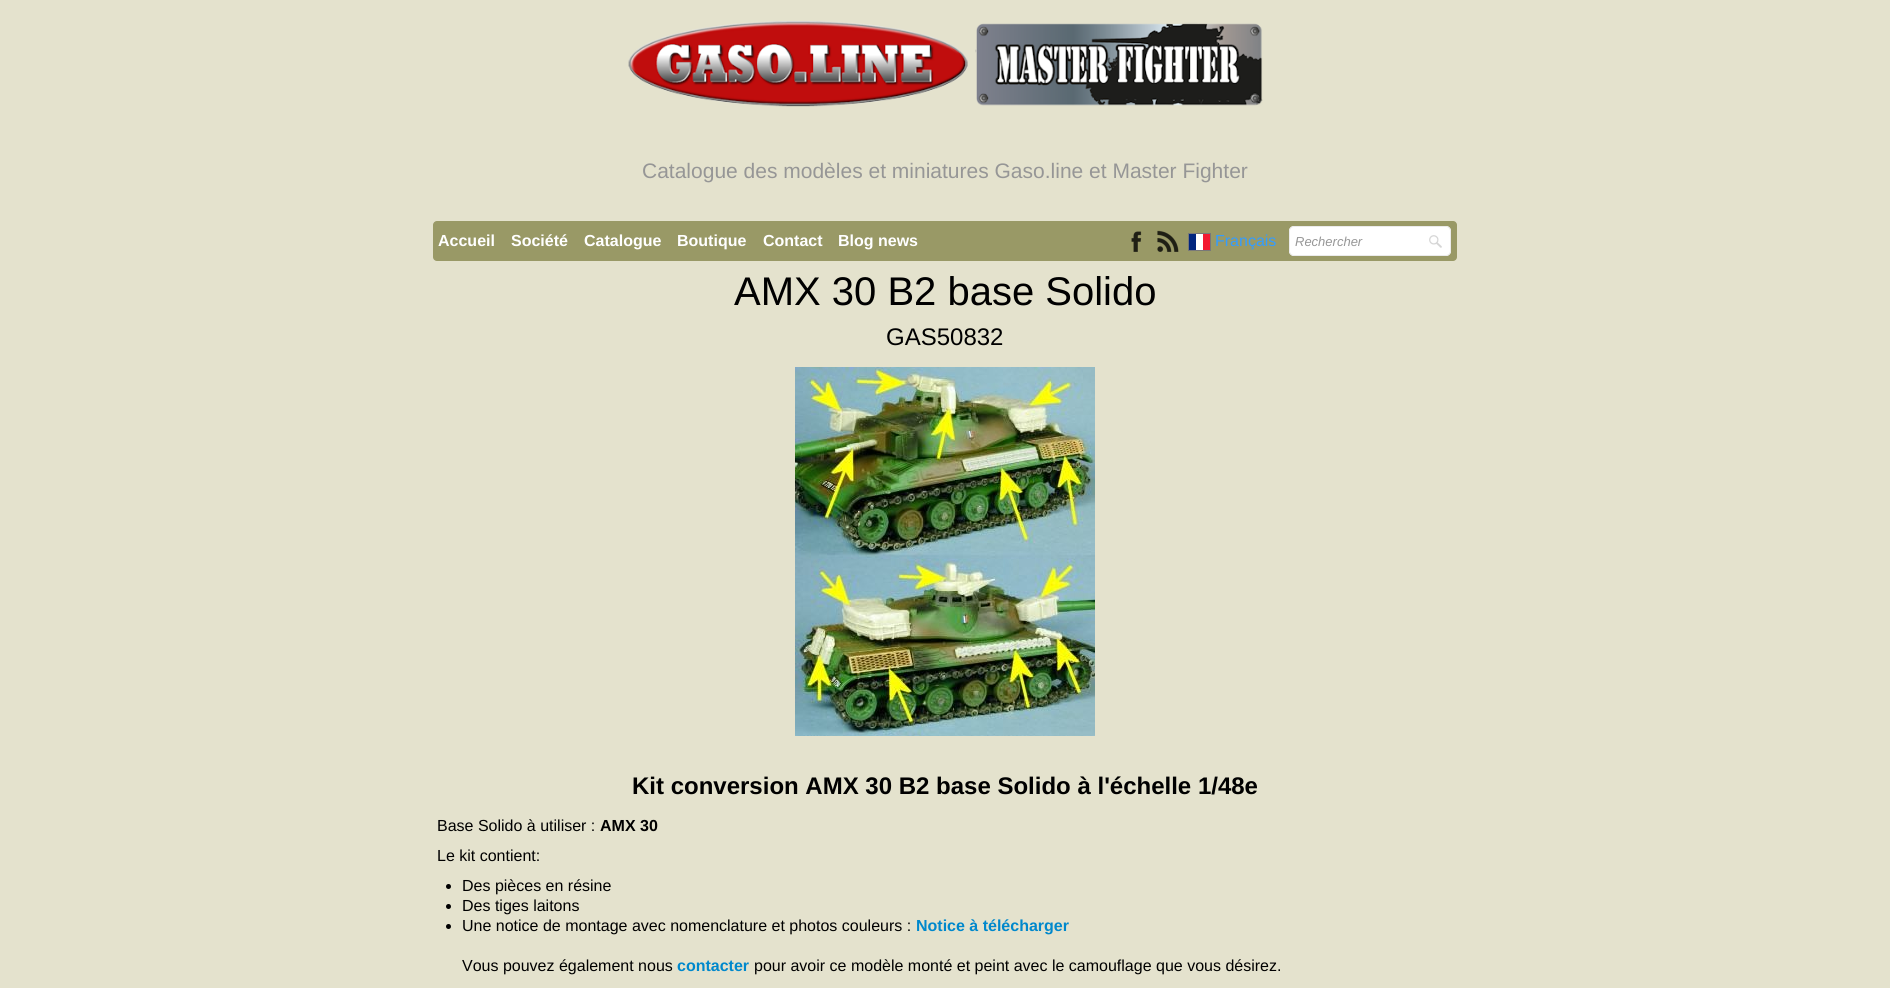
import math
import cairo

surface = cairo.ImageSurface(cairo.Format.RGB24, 1890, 988)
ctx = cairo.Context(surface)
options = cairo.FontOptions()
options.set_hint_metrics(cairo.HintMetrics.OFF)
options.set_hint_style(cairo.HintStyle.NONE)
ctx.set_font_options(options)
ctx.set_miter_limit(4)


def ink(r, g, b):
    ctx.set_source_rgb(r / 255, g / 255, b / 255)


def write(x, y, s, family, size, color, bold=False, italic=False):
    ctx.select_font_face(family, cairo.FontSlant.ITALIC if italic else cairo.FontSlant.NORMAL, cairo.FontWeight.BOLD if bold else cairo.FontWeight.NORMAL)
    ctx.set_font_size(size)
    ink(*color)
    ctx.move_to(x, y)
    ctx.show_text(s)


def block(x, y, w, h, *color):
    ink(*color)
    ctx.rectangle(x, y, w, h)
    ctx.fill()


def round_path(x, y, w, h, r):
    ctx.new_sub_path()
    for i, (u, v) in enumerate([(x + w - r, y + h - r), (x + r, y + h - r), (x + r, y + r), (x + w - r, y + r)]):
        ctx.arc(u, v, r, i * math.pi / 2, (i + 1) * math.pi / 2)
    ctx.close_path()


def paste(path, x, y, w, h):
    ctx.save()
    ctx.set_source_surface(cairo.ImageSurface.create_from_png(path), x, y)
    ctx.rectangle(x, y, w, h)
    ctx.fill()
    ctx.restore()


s1 = dict(family="Liberation Sans", size=21, color=(150, 150, 150))
s2 = dict(family="Liberation Sans", size=16, color=(255, 255, 255), bold=True)
s3 = dict(family="Liberation Sans", size=16, color=(51, 156, 255))
s4 = dict(family="Liberation Sans", size=13, color=(150, 150, 150), italic=True)
s5 = dict(family="Liberation Sans", size=40, color=(0, 0, 0))
s6 = dict(family="Liberation Sans", size=24, color=(0, 0, 0))
s7 = dict(family="Liberation Sans", size=24, color=(0, 0, 0), bold=True)
s8 = dict(family="Liberation Sans", size=16, color=(0, 0, 0))
s9 = dict(family="Liberation Sans", size=16, color=(0, 0, 0), bold=True)
s10 = dict(family="Liberation Sans", size=16, color=(0, 136, 204), bold=True)

ink(228, 226, 205)
ctx.paint()
paste("pic1.png", 628, 21, 635, 86)
write(642, 178, "Catalogue des modèles et miniatures Gaso.line et Master Fighter", **s1)
ink(153, 153, 102)
round_path(433, 221, 1024, 40, 4)
ctx.fill()
write(438, 246, "Accueil", **s2)
write(511, 246, "Société", **s2)
write(584, 246, "Catalogue", **s2)
write(677, 246, "Boutique", **s2)
write(763, 246, "Contact", **s2)
write(838, 246, "Blog news", **s2)
paste("pic2.png", 1131, 231, 11, 21)
paste("pic3.png", 1157, 230, 22, 22)
write(1215, 246, "Français", **s3)
ctx.rectangle(1188.5, 233.5, 22, 17)
ink(120, 120, 120)
ctx.set_line_width(1)
ctx.stroke()
block(1196, 234, 7, 16, 255, 255, 255)
block(1189, 234, 7, 16, 0, 38, 127)
block(1203, 234, 7, 16, 243, 24, 48)
ink(255, 255, 255)
round_path(1289, 226, 162, 30, 5)
ctx.fill()
paste("pic4.png", 1429, 235, 13, 13)
round_path(1289.5, 226.5, 161, 29, 4.5)
ink(235, 235, 235)
ctx.stroke()
write(1295, 246, "Rechercher", **s4)
write(734, 305, "AMX 30 B2 base Solido", **s5)
write(886, 345, "GAS50832", **s6)
paste("pic5.png", 795, 367, 300, 369)
write(632, 794, "Kit conversion AMX 30 B2 base Solido à l'échelle 1/48e", **s7)
write(437, 831, "Base Solido à utiliser :", **s8)
write(600, 831, "AMX 30", **s9)
write(437, 861, "Le kit contient:", **s8)
ctx.new_path()
ctx.arc(448.5, 886.5, 2.5, 0, 2 * math.pi)
ctx.fill()
write(462, 891, "Des pièces en résine", **s8)
ctx.new_path()
ctx.arc(448.5, 906.5, 2.5, 0, 2 * math.pi)
ctx.fill()
write(462, 911, "Des tiges laitons", **s8)
ctx.new_path()
ctx.arc(448.5, 926.5, 2.5, 0, 2 * math.pi)
ctx.fill()
write(462, 931, "Une notice de montage avec nomenclature et photos couleurs :", **s8)
write(916, 931, "Notice à télécharger", **s10)
write(462, 971, "Vous pouvez également nous", **s8)
write(677, 971, "contacter", **s10)
write(754, 971, "pour avoir ce modèle monté et peint avec le camouflage que vous désirez.", **s8)
surface.write_to_png("screenshot.png")
